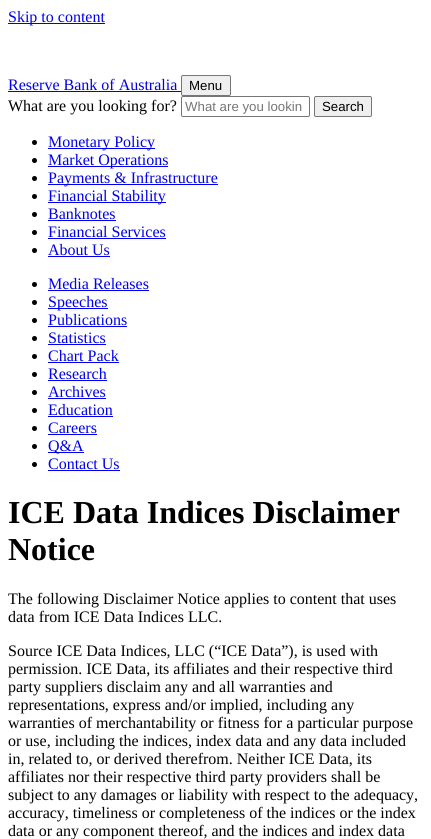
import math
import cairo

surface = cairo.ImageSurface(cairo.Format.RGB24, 431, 839)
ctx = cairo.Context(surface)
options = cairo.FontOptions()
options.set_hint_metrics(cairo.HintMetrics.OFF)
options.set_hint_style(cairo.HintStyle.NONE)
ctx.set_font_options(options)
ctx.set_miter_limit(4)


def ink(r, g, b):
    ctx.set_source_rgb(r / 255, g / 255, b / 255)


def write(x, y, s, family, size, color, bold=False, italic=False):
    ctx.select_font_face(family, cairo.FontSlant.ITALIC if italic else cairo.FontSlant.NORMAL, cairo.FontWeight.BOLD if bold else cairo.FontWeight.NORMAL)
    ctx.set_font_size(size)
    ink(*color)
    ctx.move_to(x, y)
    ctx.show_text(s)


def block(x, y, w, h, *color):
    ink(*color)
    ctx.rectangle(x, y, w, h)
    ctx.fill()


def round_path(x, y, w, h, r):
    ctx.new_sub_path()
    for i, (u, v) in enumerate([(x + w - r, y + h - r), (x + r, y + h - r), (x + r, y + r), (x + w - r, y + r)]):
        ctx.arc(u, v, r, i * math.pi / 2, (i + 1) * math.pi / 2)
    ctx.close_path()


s1 = dict(family="Liberation Serif", size=16, color=(0, 0, 238))
s2 = dict(family="Liberation Sans", size=13.25, color=(0, 0, 0))
s3 = dict(family="Liberation Serif", size=16, color=(0, 0, 0))
s4 = dict(family="Liberation Sans", size=13.25, color=(117, 117, 117))
s5 = dict(family="Liberation Serif", size=32, color=(0, 0, 0), bold=True)

ink(255, 255, 255)
ctx.paint()
block(8, 23, 97, 1, 0, 0, 238)
write(8, 22, "Skip to content", **s1)
write(8, 90, "Reserve Bank of Australia", **s1)
block(8, 91, 173, 1, 0, 0, 238)
ink(239, 239, 239)
round_path(181.5, 75.5, 49, 20, 1.5)
ctx.fill_preserve()
ink(118, 118, 118)
ctx.set_line_width(1)
ctx.stroke()
write(189, 90, "Menu", **s2)
write(8, 111, "What are you looking for?", **s3)
round_path(181.5, 96.5, 128, 20, 1.5)
ink(118, 118, 118)
ctx.stroke()
write(185, 111, "What are you lookin", **s4)
ink(239, 239, 239)
round_path(314.5, 96.5, 57, 20, 1.5)
ctx.fill_preserve()
ink(118, 118, 118)
ctx.stroke()
write(322, 111, "Search", **s2)
ctx.new_path()
ctx.arc(34.5, 142.5, 2.5, 0, 2 * math.pi)
ctx.fill()
block(48, 148, 107, 1, 0, 0, 238)
write(48, 147, "Monetary Policy", **s1)
ink(0, 0, 0)
ctx.new_path()
ctx.arc(34.5, 160.5, 2.5, 0, 2 * math.pi)
ctx.fill()
block(48, 166, 120, 1, 0, 0, 238)
write(48, 165, "Market Operations", **s1)
ink(0, 0, 0)
ctx.new_path()
ctx.arc(34.5, 178.5, 2.5, 0, 2 * math.pi)
ctx.fill()
block(48, 184, 170, 1, 0, 0, 238)
write(48, 183, "Payments & Infrastructure", **s1)
ink(0, 0, 0)
ctx.new_path()
ctx.arc(34.5, 196.5, 2.5, 0, 2 * math.pi)
ctx.fill()
block(48, 202, 118, 1, 0, 0, 238)
write(48, 201, "Financial Stability", **s1)
ink(0, 0, 0)
ctx.new_path()
ctx.arc(34.5, 214.5, 2.5, 0, 2 * math.pi)
ctx.fill()
write(48, 219, "Banknotes", **s1)
block(48, 220, 68, 1, 0, 0, 238)
ink(0, 0, 0)
ctx.new_path()
ctx.arc(34.5, 232.5, 2.5, 0, 2 * math.pi)
ctx.fill()
write(48, 237, "Financial Services", **s1)
block(48, 238, 118, 1, 0, 0, 238)
ink(0, 0, 0)
ctx.new_path()
ctx.arc(34.5, 250.5, 2.5, 0, 2 * math.pi)
ctx.fill()
write(48, 255, "About Us", **s1)
block(48, 256, 62, 1, 0, 0, 238)
ink(0, 0, 0)
ctx.new_path()
ctx.arc(34.5, 284.5, 2.5, 0, 2 * math.pi)
ctx.fill()
write(48, 289, "Media Releases", **s1)
block(48, 290, 101, 1, 0, 0, 238)
ink(0, 0, 0)
ctx.new_path()
ctx.arc(34.5, 302.5, 2.5, 0, 2 * math.pi)
ctx.fill()
block(48, 308, 60, 1, 0, 0, 238)
write(48, 307, "Speeches", **s1)
ink(0, 0, 0)
ctx.new_path()
ctx.arc(34.5, 320.5, 2.5, 0, 2 * math.pi)
ctx.fill()
write(48, 325, "Publications", **s1)
block(48, 326, 79, 1, 0, 0, 238)
ink(0, 0, 0)
ctx.new_path()
ctx.arc(34.5, 338.5, 2.5, 0, 2 * math.pi)
ctx.fill()
write(48, 343, "Statistics", **s1)
block(48, 344, 58, 1, 0, 0, 238)
ink(0, 0, 0)
ctx.new_path()
ctx.arc(34.5, 356.5, 2.5, 0, 2 * math.pi)
ctx.fill()
write(48, 361, "Chart Pack", **s1)
block(48, 362, 71, 1, 0, 0, 238)
ink(0, 0, 0)
ctx.new_path()
ctx.arc(34.5, 374.5, 2.5, 0, 2 * math.pi)
ctx.fill()
write(48, 379, "Research", **s1)
block(48, 380, 59, 1, 0, 0, 238)
ink(0, 0, 0)
ctx.new_path()
ctx.arc(34.5, 392.5, 2.5, 0, 2 * math.pi)
ctx.fill()
write(48, 397, "Archives", **s1)
block(48, 398, 58, 1, 0, 0, 238)
ink(0, 0, 0)
ctx.new_path()
ctx.arc(34.5, 410.5, 2.5, 0, 2 * math.pi)
ctx.fill()
write(48, 415, "Education", **s1)
block(48, 416, 65, 1, 0, 0, 238)
ink(0, 0, 0)
ctx.new_path()
ctx.arc(34.5, 428.5, 2.5, 0, 2 * math.pi)
ctx.fill()
write(48, 433, "Careers", **s1)
block(48, 434, 49, 1, 0, 0, 238)
ink(0, 0, 0)
ctx.new_path()
ctx.arc(34.5, 446.5, 2.5, 0, 2 * math.pi)
ctx.fill()
block(48, 452, 36, 1, 0, 0, 238)
write(48, 451, "Q&A", **s1)
ink(0, 0, 0)
ctx.new_path()
ctx.arc(34.5, 464.5, 2.5, 0, 2 * math.pi)
ctx.fill()
write(48, 469, "Contact Us", **s1)
block(48, 470, 72, 1, 0, 0, 238)
write(8, 523, "ICE Data Indices Disclaimer", **s5)
write(8, 560, "Notice", **s5)
write(8, 604, "The following Disclaimer Notice applies to content that uses", **s3)
write(8, 622, "data from ICE Data Indices LLC.", **s3)
write(8, 656, "Source ICE Data Indices, LLC (“ICE Data”), is used with", **s3)
write(8, 674, "permission. ICE Data, its affiliates and their respective third", **s3)
write(8, 692, "party suppliers disclaim any and all warranties and", **s3)
write(8, 710, "representations, express and/or implied, including any", **s3)
write(8, 728, "warranties of merchantability or fitness for a particular purpose", **s3)
write(8, 746, "or use, including the indices, index data and any data included", **s3)
write(8, 764, "in, related to, or derived therefrom. Neither ICE Data, its", **s3)
write(8, 782, "affiliates nor their respective third party providers shall be", **s3)
write(8, 800, "subject to any damages or liability with respect to the adequacy,", **s3)
write(8, 818, "accuracy, timeliness or completeness of the indices or the index", **s3)
write(8, 836, "data or any component thereof, and the indices and index data", **s3)
surface.write_to_png("screenshot.png")
